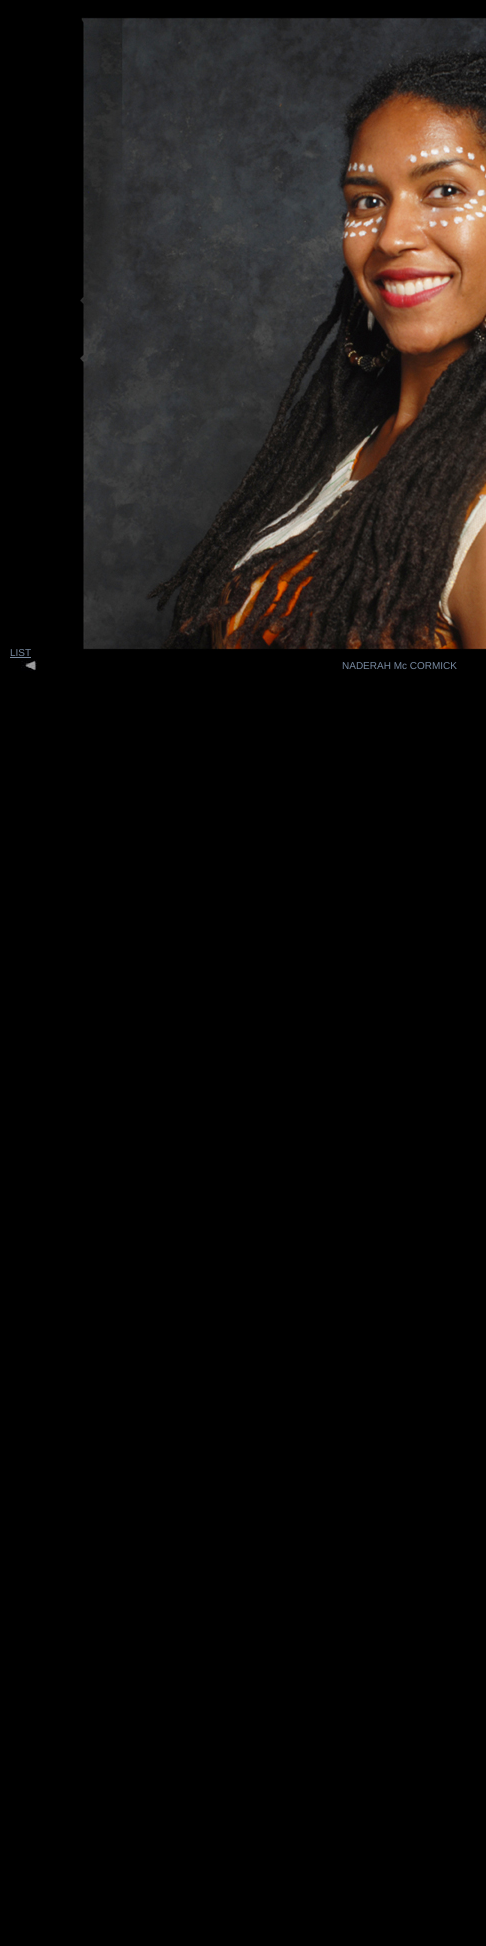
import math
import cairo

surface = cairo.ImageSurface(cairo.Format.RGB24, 486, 1946)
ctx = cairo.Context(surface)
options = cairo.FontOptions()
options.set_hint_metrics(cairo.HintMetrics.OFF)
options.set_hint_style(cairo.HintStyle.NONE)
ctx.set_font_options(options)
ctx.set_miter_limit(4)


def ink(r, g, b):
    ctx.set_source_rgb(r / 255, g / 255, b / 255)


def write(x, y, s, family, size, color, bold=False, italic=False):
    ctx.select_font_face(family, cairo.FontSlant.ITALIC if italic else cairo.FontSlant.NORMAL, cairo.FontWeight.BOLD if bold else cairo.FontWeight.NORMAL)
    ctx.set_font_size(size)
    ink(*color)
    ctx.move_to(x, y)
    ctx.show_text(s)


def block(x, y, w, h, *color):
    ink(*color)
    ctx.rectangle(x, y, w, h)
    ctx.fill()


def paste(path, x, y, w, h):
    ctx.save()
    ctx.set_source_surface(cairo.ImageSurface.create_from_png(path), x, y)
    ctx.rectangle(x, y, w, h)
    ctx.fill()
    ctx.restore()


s1 = dict(family="Liberation Sans", size=10, color=(120, 138, 161))

ink(0, 0, 0)
ctx.paint()
paste("pic1.png", 80, 17, 406, 633)
write(10, 656, "LIST", **s1)
block(10, 657, 21, 1, 120, 138, 161)
paste("pic2.png", 21, 660, 16, 11)
write(342, 669, "NADERAH Mc CORMICK", **s1)
surface.write_to_png("screenshot.png")
